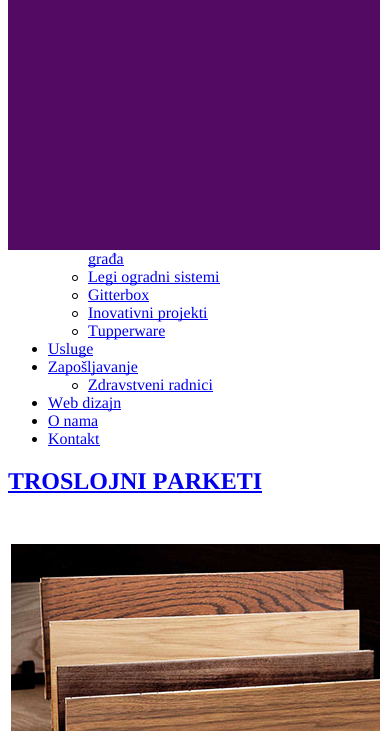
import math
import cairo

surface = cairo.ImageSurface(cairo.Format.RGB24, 380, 731)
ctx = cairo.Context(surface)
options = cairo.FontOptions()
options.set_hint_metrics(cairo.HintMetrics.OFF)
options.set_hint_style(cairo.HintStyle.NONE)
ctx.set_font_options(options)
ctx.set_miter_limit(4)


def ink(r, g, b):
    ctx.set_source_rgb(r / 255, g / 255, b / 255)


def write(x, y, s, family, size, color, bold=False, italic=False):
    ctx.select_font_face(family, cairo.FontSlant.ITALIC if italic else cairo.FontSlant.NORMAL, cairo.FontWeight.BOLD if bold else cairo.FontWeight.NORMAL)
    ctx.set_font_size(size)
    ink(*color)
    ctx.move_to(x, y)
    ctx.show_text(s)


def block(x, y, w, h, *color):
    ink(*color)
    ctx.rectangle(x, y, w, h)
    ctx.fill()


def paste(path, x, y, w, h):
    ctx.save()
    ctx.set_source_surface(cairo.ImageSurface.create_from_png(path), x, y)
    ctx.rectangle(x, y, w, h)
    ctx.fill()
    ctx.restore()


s1 = dict(family="Liberation Serif", size=16, color=(0, 0, 238))
s2 = dict(family="Liberation Serif", size=24, color=(0, 0, 238), bold=True)

ink(255, 255, 255)
ctx.paint()
block(8, 0, 372, 250, 83, 10, 99)
block(88, 265, 36, 1, 0, 0, 238)
write(88, 264, "građa", **s1)
ctx.new_path()
ctx.arc(75, 278, 2.5, 0, 2 * math.pi)
ink(0, 0, 0)
ctx.set_line_width(1)
ctx.stroke()
block(88, 283, 132, 1, 0, 0, 238)
write(88, 282, "Legi ogradni sistemi", **s1)
ctx.new_path()
ctx.arc(75, 296, 2.5, 0, 2 * math.pi)
ink(0, 0, 0)
ctx.stroke()
write(88, 300, "Gitterbox", **s1)
block(88, 301, 61, 1, 0, 0, 238)
ctx.new_path()
ctx.arc(75, 314, 2.5, 0, 2 * math.pi)
ink(0, 0, 0)
ctx.stroke()
block(88, 319, 120, 1, 0, 0, 238)
write(88, 318, "Inovativni projekti", **s1)
ctx.new_path()
ctx.arc(75, 332, 2.5, 0, 2 * math.pi)
ink(0, 0, 0)
ctx.stroke()
block(88, 337, 77, 1, 0, 0, 238)
write(88, 336, "Tupperware", **s1)
ink(0, 0, 0)
ctx.new_path()
ctx.arc(34.5, 349.5, 2.5, 0, 2 * math.pi)
ctx.fill()
block(48, 355, 45, 1, 0, 0, 238)
write(48, 354, "Usluge", **s1)
ink(0, 0, 0)
ctx.new_path()
ctx.arc(34.5, 367.5, 2.5, 0, 2 * math.pi)
ctx.fill()
block(48, 373, 90, 1, 0, 0, 238)
write(48, 372, "Zapošljavanje", **s1)
ctx.new_path()
ctx.arc(75, 386, 2.5, 0, 2 * math.pi)
ink(0, 0, 0)
ctx.stroke()
write(88, 390, "Zdravstveni radnici", **s1)
block(88, 391, 125, 1, 0, 0, 238)
ink(0, 0, 0)
ctx.new_path()
ctx.arc(34.5, 403.5, 2.5, 0, 2 * math.pi)
ctx.fill()
block(48, 409, 73, 1, 0, 0, 238)
write(48, 408, "Web dizajn", **s1)
ink(0, 0, 0)
ctx.new_path()
ctx.arc(34.5, 421.5, 2.5, 0, 2 * math.pi)
ctx.fill()
write(48, 426, "O nama", **s1)
block(48, 427, 50, 1, 0, 0, 238)
ink(0, 0, 0)
ctx.new_path()
ctx.arc(34.5, 439.5, 2.5, 0, 2 * math.pi)
ctx.fill()
write(48, 444, "Kontakt", **s1)
block(48, 445, 52, 1, 0, 0, 238)
write(8, 489, "TROSLOJNI PARKETI", **s2)
block(8, 491, 254, 2, 0, 0, 238)
paste("pic1.png", 11, 544, 369, 187)
surface.write_to_png("screenshot.png")
